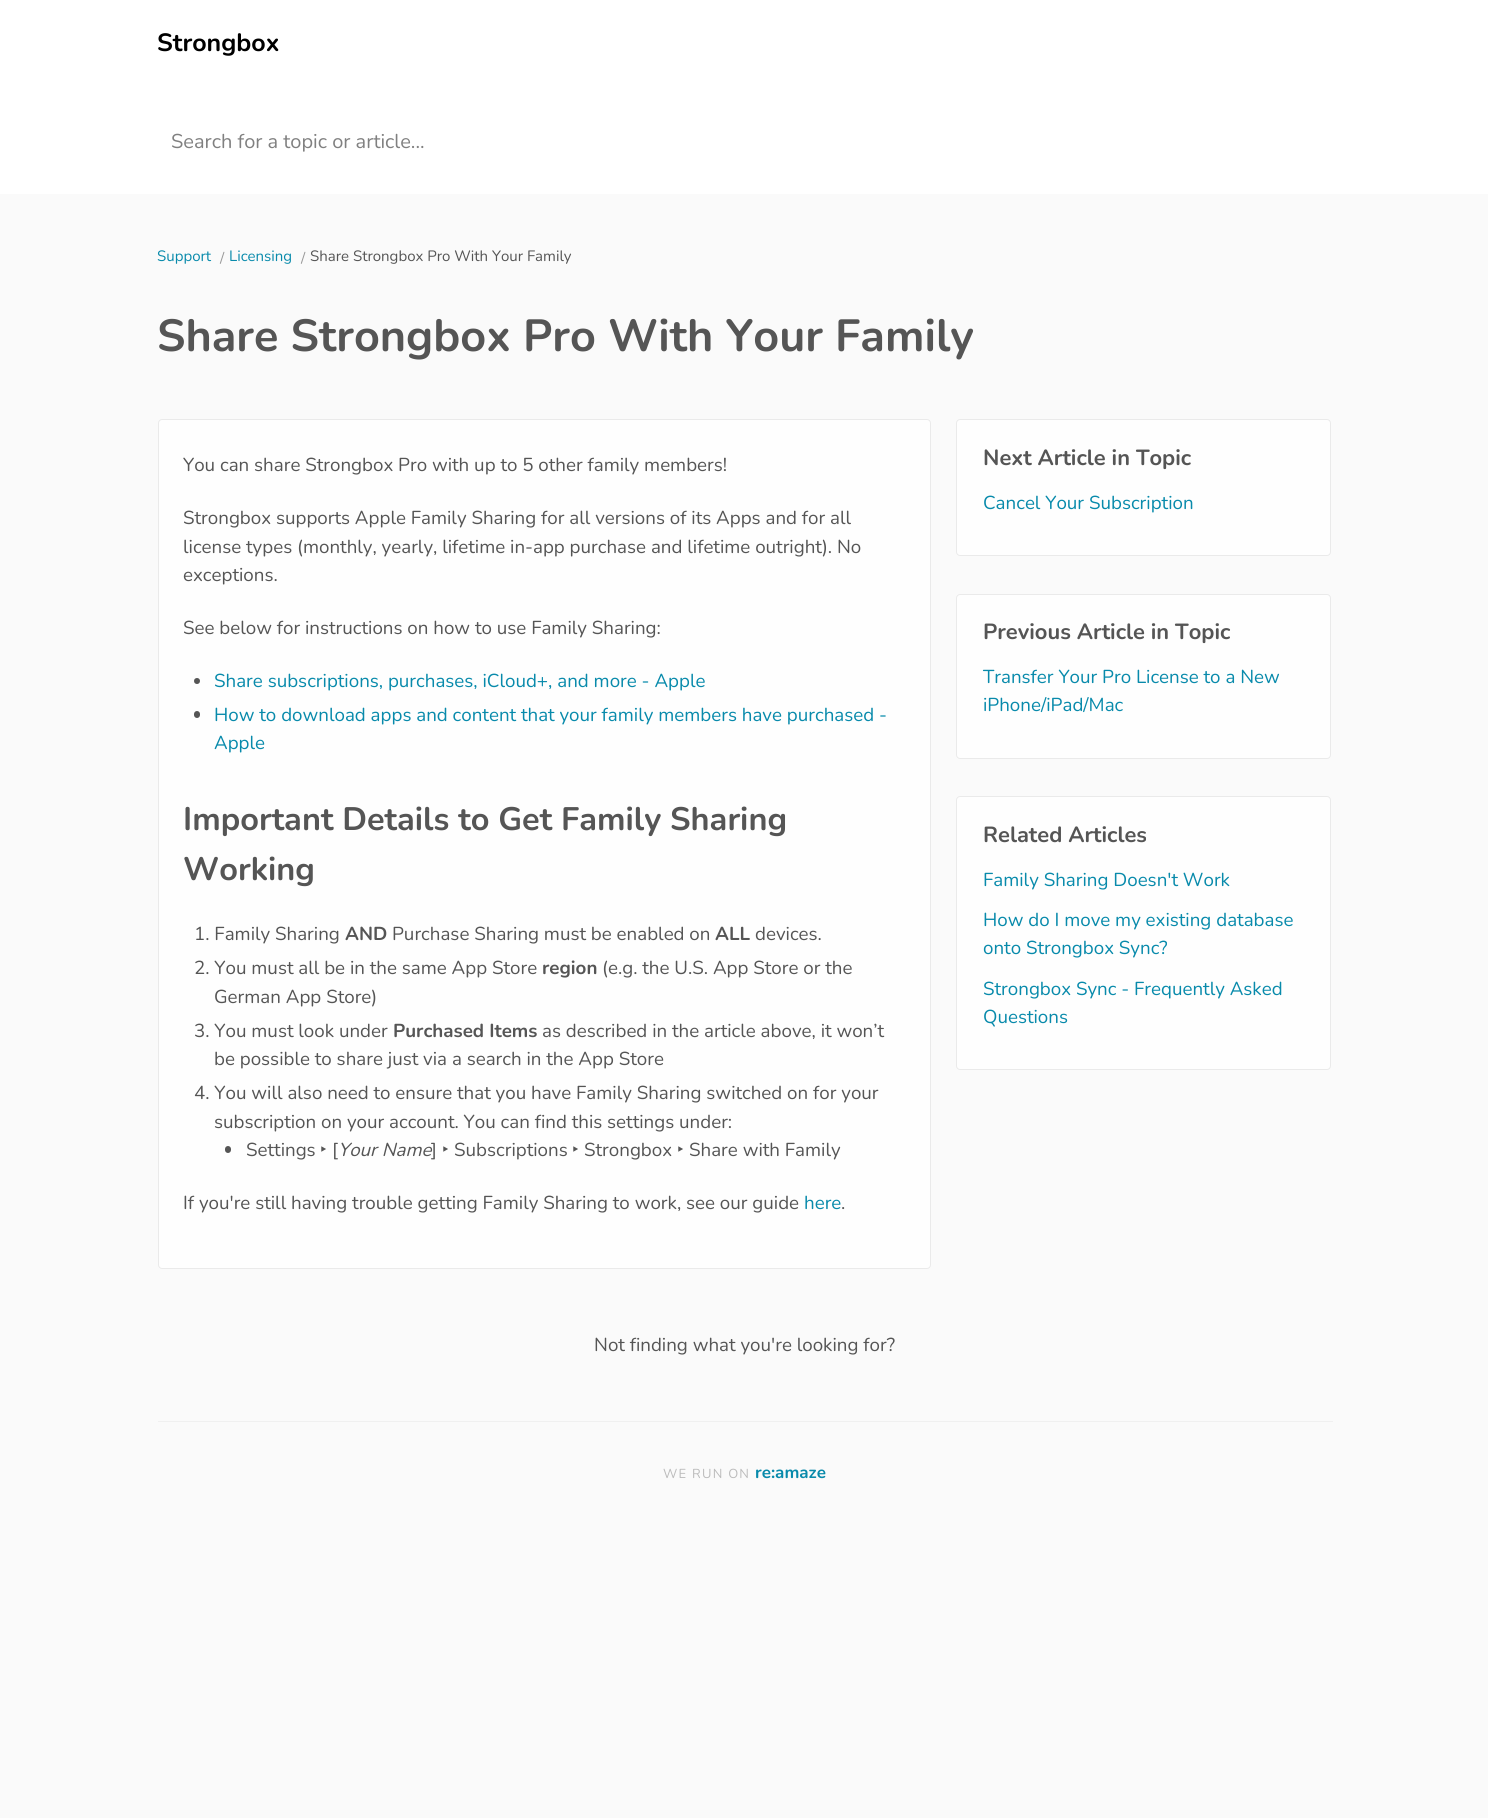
import math
import cairo

surface = cairo.ImageSurface(cairo.Format.RGB24, 1488, 1818)
ctx = cairo.Context(surface)
options = cairo.FontOptions()
options.set_hint_metrics(cairo.HintMetrics.OFF)
options.set_hint_style(cairo.HintStyle.NONE)
ctx.set_font_options(options)
ctx.set_miter_limit(4)


def ink(r, g, b):
    ctx.set_source_rgb(r / 255, g / 255, b / 255)


def write(x, y, s, family, size, color, bold=False, italic=False):
    ctx.select_font_face(family, cairo.FontSlant.ITALIC if italic else cairo.FontSlant.NORMAL, cairo.FontWeight.BOLD if bold else cairo.FontWeight.NORMAL)
    ctx.set_font_size(size)
    ink(*color)
    ctx.move_to(x, y)
    ctx.show_text(s)


def write_spaced(x, y, s, letter, word):
    ctx.move_to(x, y)
    for ch in s:
        ctx.show_text(ch)
        ctx.rel_move_to(letter + word * (ch == ' '), 0)


def block(x, y, w, h, *color):
    ink(*color)
    ctx.rectangle(x, y, w, h)
    ctx.fill()


def round_path(x, y, w, h, r):
    ctx.new_sub_path()
    for i, (u, v) in enumerate([(x + w - r, y + h - r), (x + r, y + h - r), (x + r, y + r), (x + w - r, y + r)]):
        ctx.arc(u, v, r, i * math.pi / 2, (i + 1) * math.pi / 2)
    ctx.close_path()


s1 = dict(family="Nunito", size=25, color=(0, 0, 0), bold=True)
s2 = dict(family="Nunito", size=20, color=(128, 128, 128))
s3 = dict(family="Nunito", size=15, color=(8, 138, 171))
s4 = dict(family="Nunito", size=15, color=(153, 153, 153))
s5 = dict(family="Nunito", size=15, color=(85, 85, 85))
s6 = dict(family="Nunito", size=45, color=(85, 85, 85), bold=True)
s7 = dict(family="Nunito", size=18.75, color=(85, 85, 85))
s8 = dict(family="Nunito", size=18.75, color=(8, 138, 171))
s9 = dict(family="Nunito", size=32.5, color=(85, 85, 85), bold=True)
s10 = dict(family="Nunito", size=18.75, color=(85, 85, 85), bold=True)
s11 = dict(family="Noto Sans", size=18.75, color=(85, 85, 85))
s12 = dict(family="Nunito", size=18.75, color=(85, 85, 85), italic=True)
s13 = dict(family="Nunito", size=21.9, color=(85, 85, 85), bold=True)
s14 = dict(family="Nunito", size=17, color=(8, 138, 171), bold=True)

ink(250, 250, 250)
ctx.paint()
block(0, 0, 1488, 194, 255, 255, 255)
write(157, 51, "Strongbox", **s1)
write(171, 148, "Search for a topic or article...", **s2)
write(157, 261, "Support", **s3)
write(220, 263, "/", **s4)
write(229, 261, "Licensing", **s3)
write(301, 263, "/", **s4)
write(310, 261, "Share Strongbox Pro With Your Family", **s5)
write(157, 351, "Share Strongbox Pro With Your Family", **s6)
ink(254, 254, 254)
round_path(158.5, 419.5, 772, 849, 3.5)
ctx.fill_preserve()
ink(234, 234, 234)
ctx.set_line_width(1)
ctx.stroke()
write(183, 471, "You can share Strongbox Pro with up to 5 other family members!", **s7)
write(183, 524, "Strongbox supports Apple Family Sharing for all versions of its Apps and for all", **s7)
write(183, 553, "license types (monthly, yearly, lifetime in-app purchase and lifetime outright). No", **s7)
write(183, 581, "exceptions.", **s7)
write(183, 634, "See below for instructions on how to use Family Sharing:", **s7)
ctx.new_path()
ctx.arc(197, 681, 3, 0, 2 * math.pi)
ctx.fill()
write(214, 687, "Share subscriptions, purchases, iCloud+, and more - Apple", **s8)
ink(85, 85, 85)
round_path(194, 711, 6, 7, 3)
ctx.fill()
write(214, 721, "How to download apps and content that your family members have purchased -", **s8)
write(214, 749, "Apple", **s8)
write(183, 830, "Important Details to Get Family Sharing", **s9)
write(183, 880, "Working", **s9)
write(194, 940, "1. Family Sharing", **s7)
write(345, 940, "AND", **s10)
write(392, 940, "Purchase Sharing must be enabled on", **s7)
write(715, 940, "ALL", **s10)
write(755, 940, "devices.", **s7)
write(194, 974, "2. You must all be in the same App Store", **s7)
write(542, 974, "region", **s10)
write(602, 974, "(e.g. the U.S. App Store or the", **s7)
write(214, 1003, "German App Store)", **s7)
write(194, 1037, "3. You must look under", **s7)
write(393, 1037, "Purchased Items", **s10)
write(542, 1037, "as described in the article above, it won’t", **s7)
write(214, 1065, "be possible to share just via a search in the App Store", **s7)
write(194, 1099, "4. You will also need to ensure that you have Family Sharing switched on for your", **s7)
write(214, 1128, "subscription on your account. You can find this settings under:", **s7)
round_path(225, 1146, 6, 7, 3)
ctx.fill()
write(246, 1156, "Settings", **s7)
write(320, 1156, "‣", **s11)
write(332, 1156, "[", **s7)
write(338, 1156, "Your Name", **s12)
write(431, 1156, "]", **s7)
write(442, 1156, "‣", **s11)
write(454, 1156, "Subscriptions", **s7)
write(572, 1156, "‣", **s11)
write(584, 1156, "Strongbox", **s7)
write(677, 1156, "‣", **s11)
write(689, 1156, "Share with Family", **s7)
write(183, 1209, "If you're still having trouble getting Family Sharing to work, see our guide", **s7)
write(804, 1209, "here", **s8)
write(841, 1209, ".", **s7)
ink(254, 254, 254)
round_path(956.5, 419.5, 374, 136, 3.5)
ctx.fill_preserve()
ink(234, 234, 234)
ctx.stroke()
write(983, 465, "Next Article in Topic", **s13)
write(983, 509, "Cancel Your Subscription", **s8)
ink(254, 254, 254)
round_path(956.5, 594.5, 374, 164, 3.5)
ctx.fill_preserve()
ink(234, 234, 234)
ctx.stroke()
write(983, 639, "Previous Article in Topic", **s13)
write(983, 683, "Transfer Your Pro License to a New", **s8)
write(983, 711, "iPhone/iPad/Mac", **s8)
ink(254, 254, 254)
round_path(956.5, 796.5, 374, 273, 3.5)
ctx.fill_preserve()
ink(234, 234, 234)
ctx.stroke()
write(983, 842, "Related Articles", **s13)
write(983, 886, "Family Sharing Doesn't Work", **s8)
write(983, 926, "How do I move my existing database", **s8)
write(983, 954, "onto Strongbox Sync?", **s8)
write(983, 995, "Strongbox Sync - Frequently Asked", **s8)
write(983, 1023, "Questions", **s8)
write(594, 1351, "Not finding what you're looking for?", **s7)
block(158, 1421, 1175, 1, 240, 240, 240)
ctx.set_font_size(13)
ink(187, 187, 187)
write_spaced(663, 1478, "WE RUN ON", 1.25, 0)
write(755, 1478, "re:amaze", **s14)
surface.write_to_png("screenshot.png")
